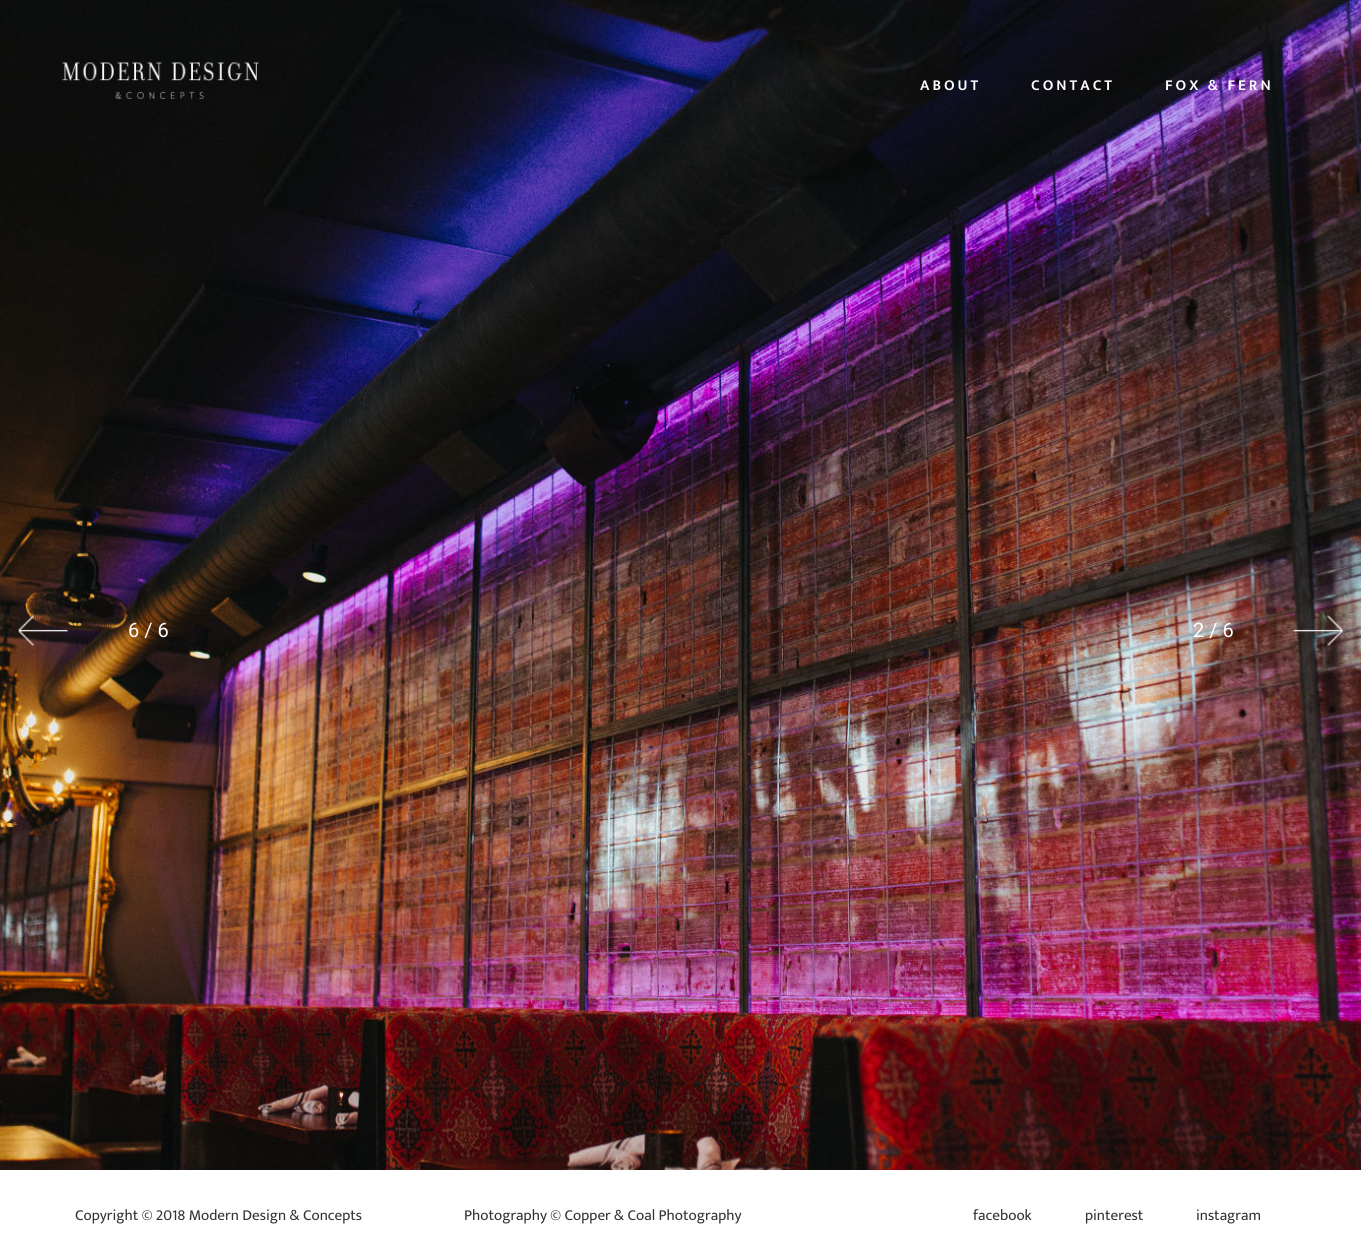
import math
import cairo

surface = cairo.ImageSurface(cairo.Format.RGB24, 1361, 1260)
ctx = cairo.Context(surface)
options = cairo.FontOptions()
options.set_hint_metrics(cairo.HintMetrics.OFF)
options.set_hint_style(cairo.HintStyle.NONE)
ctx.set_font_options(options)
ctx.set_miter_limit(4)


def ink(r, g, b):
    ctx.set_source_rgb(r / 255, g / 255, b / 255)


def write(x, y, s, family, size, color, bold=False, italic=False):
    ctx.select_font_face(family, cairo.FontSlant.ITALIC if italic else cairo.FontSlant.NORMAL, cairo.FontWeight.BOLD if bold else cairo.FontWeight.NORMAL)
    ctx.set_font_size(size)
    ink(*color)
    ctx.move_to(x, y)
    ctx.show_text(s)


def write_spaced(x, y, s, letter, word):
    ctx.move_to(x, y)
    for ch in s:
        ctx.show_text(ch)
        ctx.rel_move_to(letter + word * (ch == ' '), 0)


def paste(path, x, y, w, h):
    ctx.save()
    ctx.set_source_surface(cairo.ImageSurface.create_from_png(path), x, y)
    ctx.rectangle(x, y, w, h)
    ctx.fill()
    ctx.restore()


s1 = dict(family="Roboto", size=20, color=(255, 255, 255))
s2 = dict(family="Mukta", size=15.25, color=(51, 51, 51))

ink(255, 255, 255)
ctx.paint()
paste("pic2.png", 0, 0, 1361, 1170)
paste("pic1.png", 62, 62, 197, 37)
ctx.select_font_face("Mukta SemiBold")
ctx.set_font_size(15.25)
ink(255, 255, 255)
write_spaced(920, 90, "ABOUT", 3, 0)
write_spaced(1031, 90, "CONTACT", 3, 0)
write_spaced(1165, 90, "FOX & FERN", 3, 0)
paste("pic3.png", 18, 615, 50, 32)
write(128, 637, "6 / 6", **s1)
paste("pic4.png", 1293, 615, 50, 32)
write(1193, 637, "2 / 6", **s1)
write(75, 1220, "Copyright © 2018 Modern Design & Concepts", **s2)
write(464, 1220, "Photography © Copper & Coal Photography", **s2)
write(973, 1220, "facebook", **s2)
write(1085, 1220, "pinterest", **s2)
write(1196, 1220, "instagram", **s2)
surface.write_to_png("screenshot.png")
